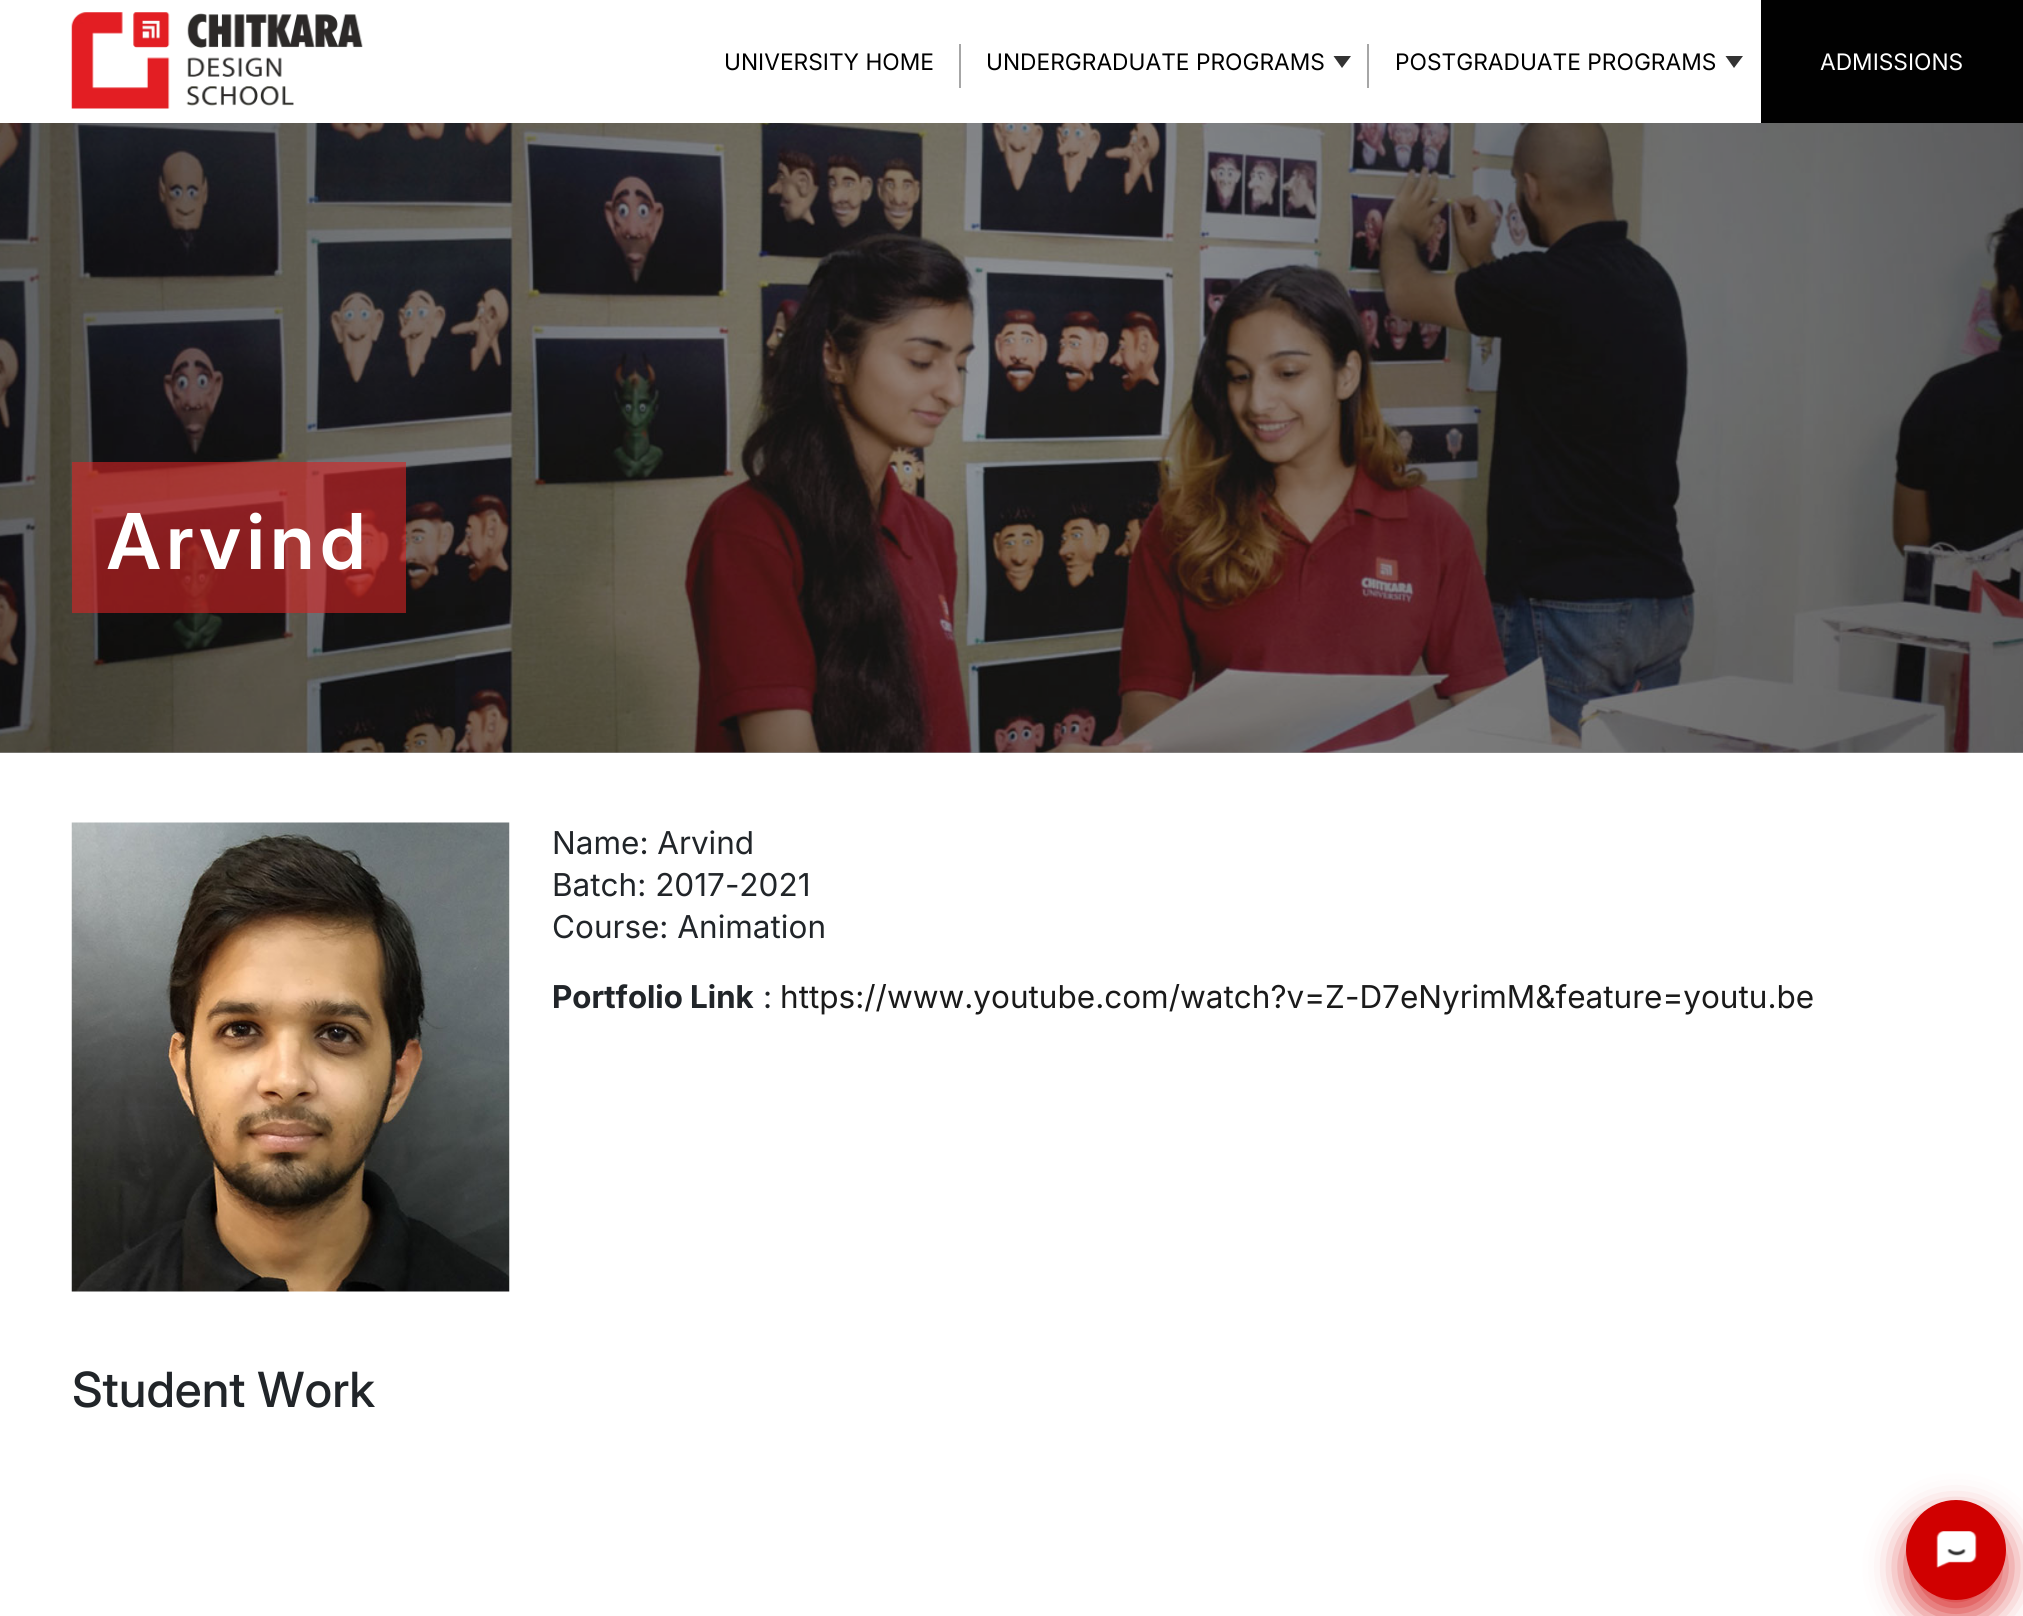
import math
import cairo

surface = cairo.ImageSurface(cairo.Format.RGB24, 2023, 1616)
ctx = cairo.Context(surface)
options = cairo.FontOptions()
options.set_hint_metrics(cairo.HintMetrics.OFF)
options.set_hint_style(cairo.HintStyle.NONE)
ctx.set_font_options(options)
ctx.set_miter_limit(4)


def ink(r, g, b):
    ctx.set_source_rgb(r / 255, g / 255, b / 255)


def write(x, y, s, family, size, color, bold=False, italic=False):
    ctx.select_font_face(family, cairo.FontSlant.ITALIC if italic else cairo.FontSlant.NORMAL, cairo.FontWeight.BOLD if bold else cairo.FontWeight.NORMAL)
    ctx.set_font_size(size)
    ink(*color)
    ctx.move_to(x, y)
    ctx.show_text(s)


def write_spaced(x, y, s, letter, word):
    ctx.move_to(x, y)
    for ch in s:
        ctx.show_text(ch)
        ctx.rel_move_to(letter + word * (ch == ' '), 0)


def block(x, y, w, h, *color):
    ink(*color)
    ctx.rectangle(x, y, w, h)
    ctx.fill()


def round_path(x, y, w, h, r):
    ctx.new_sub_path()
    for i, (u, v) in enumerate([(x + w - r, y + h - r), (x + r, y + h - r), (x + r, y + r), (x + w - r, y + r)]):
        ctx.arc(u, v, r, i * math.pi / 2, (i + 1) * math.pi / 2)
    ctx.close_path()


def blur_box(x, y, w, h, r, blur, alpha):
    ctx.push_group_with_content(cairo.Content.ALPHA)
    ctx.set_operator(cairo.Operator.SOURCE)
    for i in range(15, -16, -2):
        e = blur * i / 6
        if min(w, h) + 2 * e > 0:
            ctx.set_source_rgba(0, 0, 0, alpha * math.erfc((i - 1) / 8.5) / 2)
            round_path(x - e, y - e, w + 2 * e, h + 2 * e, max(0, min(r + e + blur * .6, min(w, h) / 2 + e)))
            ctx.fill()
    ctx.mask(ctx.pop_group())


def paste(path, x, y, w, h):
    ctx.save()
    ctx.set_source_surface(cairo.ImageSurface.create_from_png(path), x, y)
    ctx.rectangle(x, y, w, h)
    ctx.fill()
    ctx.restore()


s1 = dict(family="Inter", size=22.75, color=(0, 0, 0))
s2 = dict(family="Inter", size=22.75, color=(255, 255, 255))
s3 = dict(family="Inter", size=31.5, color=(33, 37, 41))
s4 = dict(family="Inter", size=31.5, color=(33, 37, 41), bold=True)
s5 = dict(family="Inter", size=31.5, color=(26, 26, 26))
s6 = dict(family="Inter Medium", size=48.5, color=(33, 37, 41))

ink(255, 255, 255)
ctx.paint()
block(0, 752, 2023, 1, 153, 153, 153)
paste("pic1.png", 71, 12, 292, 97)
write(724, 70, "UNIVERSITY HOME", **s1)
block(959, 44, 2, 44, 166, 166, 166)
write(986, 70, "UNDERGRADUATE PROGRAMS", **s1)
ink(51, 51, 51)
ctx.new_path()
ctx.move_to(1333.5, 56)
ctx.line_to(1351, 56)
ctx.line_to(1342, 68)
ctx.close_path()
ctx.fill()
block(1367, 44, 2, 44, 166, 166, 166)
write(1395, 70, "POSTGRADUATE PROGRAMS", **s1)
ink(51, 51, 51)
ctx.new_path()
ctx.move_to(1725.5, 56)
ctx.line_to(1743, 56)
ctx.line_to(1734, 68)
ctx.close_path()
ctx.fill()
block(1761, 0, 262, 123, 1, 1, 1)
write(1820, 70, "ADMISSIONS", **s2)
paste("pic2.png", 0, 123, 2023, 630)
ctx.set_source_rgba(0.843, 0.137, 0.137, 0.6)
ctx.rectangle(72, 462, 334, 151)
ctx.fill()
ctx.select_font_face("Inter SemiBold")
ctx.set_font_size(77)
ink(255, 255, 255)
write_spaced(107, 569, "Arvind", 5.75, 0)
paste("pic3.png", 71, 822, 439, 470)
write(552, 854, "Name: Arvind", **s3)
write(552, 896, "Batch: 2017-2021", **s3)
write(552, 938, "Course: Animation", **s3)
write(552, 1008, "Portfolio Link", **s4)
write(763, 1008, ":", **s3)
write(780, 1008, "https://www.youtube.com/watch?v=Z-D7eNyrimM&feature=youtu.be", **s5)
write(72, 1407, "Student Work", **s6)
ink(208, 0, 0)
blur_box(1906, 1517, 100, 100, 50, 17.5, 0.79)
ink(208, 0, 0)
ctx.arc(1956, 1550, 50, 0, 2 * math.pi)
ctx.fill()
paste("pic4.png", 1936, 1531, 41, 37)
surface.write_to_png("screenshot.png")
